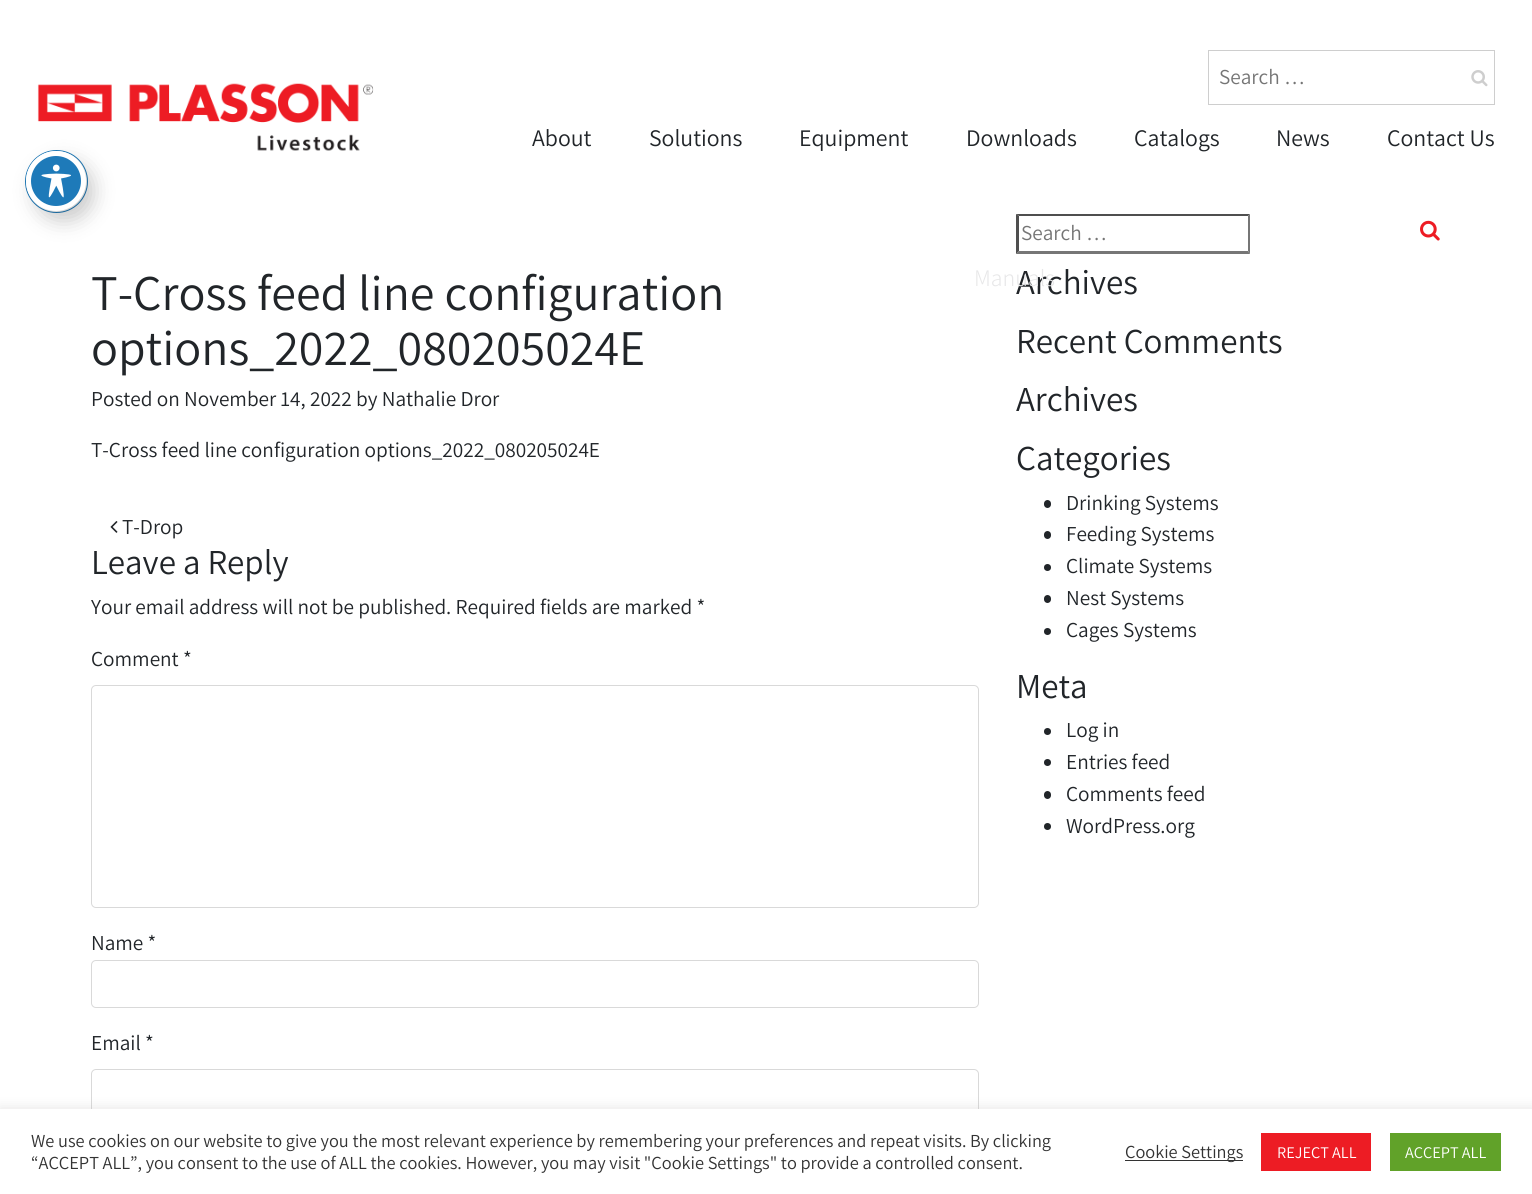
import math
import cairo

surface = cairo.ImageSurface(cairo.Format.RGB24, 1532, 1194)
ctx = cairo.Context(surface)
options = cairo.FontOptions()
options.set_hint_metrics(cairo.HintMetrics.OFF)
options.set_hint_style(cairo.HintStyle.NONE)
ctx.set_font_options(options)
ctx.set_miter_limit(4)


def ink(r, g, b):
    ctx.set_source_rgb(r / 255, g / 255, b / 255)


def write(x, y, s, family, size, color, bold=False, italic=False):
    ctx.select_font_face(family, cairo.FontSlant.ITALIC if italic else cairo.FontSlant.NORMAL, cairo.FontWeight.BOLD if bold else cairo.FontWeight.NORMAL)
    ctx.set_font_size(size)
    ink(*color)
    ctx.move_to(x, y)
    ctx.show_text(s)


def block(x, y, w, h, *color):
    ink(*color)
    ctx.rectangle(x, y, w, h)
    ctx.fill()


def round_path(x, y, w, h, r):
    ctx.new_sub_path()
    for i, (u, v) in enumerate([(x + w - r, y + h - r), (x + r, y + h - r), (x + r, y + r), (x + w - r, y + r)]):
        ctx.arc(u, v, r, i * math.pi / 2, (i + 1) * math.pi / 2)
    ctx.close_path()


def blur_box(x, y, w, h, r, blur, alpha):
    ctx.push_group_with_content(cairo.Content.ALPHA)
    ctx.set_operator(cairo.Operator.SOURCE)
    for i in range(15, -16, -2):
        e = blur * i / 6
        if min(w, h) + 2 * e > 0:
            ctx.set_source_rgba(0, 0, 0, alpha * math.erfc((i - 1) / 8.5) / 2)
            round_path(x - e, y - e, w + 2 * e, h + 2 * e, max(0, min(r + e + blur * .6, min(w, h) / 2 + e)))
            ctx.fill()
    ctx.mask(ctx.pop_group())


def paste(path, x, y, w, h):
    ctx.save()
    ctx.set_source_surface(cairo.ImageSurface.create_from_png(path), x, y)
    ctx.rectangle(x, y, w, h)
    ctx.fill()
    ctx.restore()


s1 = dict(family="Assistant", size=21.25, color=(117, 117, 117))
s2 = dict(family="Assistant", size=23.75, color=(33, 37, 41))
s3 = dict(family="Assistant", size=35, color=(33, 37, 41))
s4 = dict(family="Assistant Light", size=23.75, color=(231, 231, 232))
s5 = dict(family="Assistant", size=50, color=(33, 37, 41))
s6 = dict(family="Assistant", size=21.25, color=(33, 37, 41))
s7 = dict(family="Assistant", size=18.33, color=(51, 51, 51))
s8 = dict(family="Assistant", size=16.25, color=(255, 255, 255))

ink(255, 255, 255)
ctx.paint()
paste("pic2.png", 37, 83, 337, 68)
ctx.arc(56.5, 181.5, 31, 0, 2 * math.pi)
ink(30, 122, 185)
ctx.set_line_width(1)
ctx.stroke()
ink(0, 0, 0)
blur_box(34, 161, 60, 60, 30, 10, 0.2)
ink(30, 122, 185)
ctx.arc(56, 181, 27.5, 0, 2 * math.pi)
ctx.fill_preserve()
ink(255, 255, 255)
ctx.set_line_width(5)
ctx.stroke()
paste("pic1.png", 41, 164, 30, 34)
ctx.rectangle(1208.5, 50.5, 286, 54)
ink(206, 206, 206)
ctx.set_line_width(1)
ctx.stroke()
write(1219, 84, "Search …", **s1)
paste("pic3.png", 1471, 70, 17, 17)
write(532, 146, "About", **s2)
write(649, 146, "Solutions", **s2)
write(799, 146, "Equipment", **s2)
write(966, 146, "Downloads", **s2)
write(1016, 294, "Archives", **s3)
write(974, 286, "Manuals", **s4)
write(1134, 146, "Catalogs", **s2)
write(1276, 146, "News", **s2)
write(1387, 146, "Contact Us", **s2)
write(91, 310, "T-Cross feed line configuration", **s5)
write(91, 365, "options_2022_080205024E", **s5)
write(91, 406, "Posted on November 14, 2022 by Nathalie Dror", **s6)
write(91, 457, "T-Cross feed line configuration options_2022_080205024E", **s6)
paste("pic4.png", 110, 521, 8, 12)
write(122, 534, "T-Drop", **s6)
write(91, 574, "Leave a Reply", **s3)
write(91, 614, "Your email address will not be published. Required fields are marked *", **s6)
write(91, 666, "Comment *", **s6)
round_path(91.5, 685.5, 887, 222, 4.5)
ink(217, 217, 217)
ctx.stroke()
write(91, 950, "Name *", **s6)
round_path(91.5, 960.5, 887, 47, 4.5)
ink(217, 217, 217)
ctx.stroke()
write(91, 1050, "Email *", **s6)
round_path(91.5, 1069.5, 887, 46, 4.5)
ink(217, 217, 217)
ctx.stroke()
ink(79, 79, 79)
ctx.new_path()
ctx.move_to(1016, 214)
ctx.line_to(1250, 214)
ctx.line_to(1248, 216)
ctx.line_to(1019, 216)
ctx.close_path()
ctx.fill()
ink(118, 118, 118)
ctx.new_path()
ctx.move_to(1250, 214)
ctx.line_to(1250, 254)
ctx.line_to(1248, 251)
ctx.line_to(1248, 216)
ctx.close_path()
ctx.fill()
ctx.new_path()
ctx.move_to(1250, 254)
ctx.line_to(1016, 254)
ctx.line_to(1019, 251)
ctx.line_to(1248, 251)
ctx.close_path()
ctx.fill()
ink(79, 79, 79)
ctx.new_path()
ctx.move_to(1016, 254)
ctx.line_to(1016, 214)
ctx.line_to(1019, 216)
ctx.line_to(1019, 251)
ctx.close_path()
ctx.fill()
write(1021, 240, "Search …", **s1)
paste("pic5.png", 1420, 220, 20, 21)
write(1016, 353, "Recent Comments", **s3)
write(1016, 411, "Archives", **s3)
write(1016, 470, "Categories", **s3)
round_path(1044, 500, 7, 8, 3.5)
ctx.fill()
write(1066, 510, "Drinking Systems", **s6)
round_path(1044, 531, 7, 8, 3.5)
ctx.fill()
write(1066, 541, "Feeding Systems", **s6)
ctx.new_path()
ctx.arc(1047.5, 567.5, 3.5, 0, 2 * math.pi)
ctx.fill()
write(1066, 573, "Climate Systems", **s6)
round_path(1044, 595, 7, 8, 3.5)
ctx.fill()
write(1066, 605, "Nest Systems", **s6)
ctx.new_path()
ctx.arc(1047.5, 631.5, 3.5, 0, 2 * math.pi)
ctx.fill()
write(1066, 637, "Cages Systems", **s6)
write(1016, 698, "Meta", **s3)
ctx.new_path()
ctx.arc(1047.5, 731.5, 3.5, 0, 2 * math.pi)
ctx.fill()
write(1066, 737, "Log in", **s6)
ctx.new_path()
ctx.arc(1047.5, 762.5, 3.5, 0, 2 * math.pi)
ctx.fill()
write(1066, 769, "Entries feed", **s6)
round_path(1044, 791, 7, 8, 3.5)
ctx.fill()
write(1066, 801, "Comments feed", **s6)
ctx.new_path()
ctx.arc(1047.5, 826.5, 3.5, 0, 2 * math.pi)
ctx.fill()
write(1066, 833, "WordPress.org", **s6)
ink(172, 171, 171)
blur_box(0, 1108, 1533, 86, 0, 6, 0.3)
block(0, 1109, 1532, 85, 255, 255, 255)
write(31, 1147, "We use cookies on our website to give you the most relevant experience by remembering your preferences and repeat visits. By clicking", **s7)
write(31, 1169, "“ACCEPT ALL”, you consent to the use of ALL the cookies. However, you may visit \"Cookie Settings\" to provide a controlled consent.", **s7)
block(1125, 1160, 118, 1, 51, 51, 51)
write(1125, 1158, "Cookie Settings", **s7)
block(1261, 1133, 110, 38, 237, 28, 36)
write(1277, 1158, "REJECT ALL", **s8)
block(1390, 1133, 111, 38, 97, 162, 41)
write(1405, 1158, "ACCEPT ALL", **s8)
surface.write_to_png("screenshot.png")
